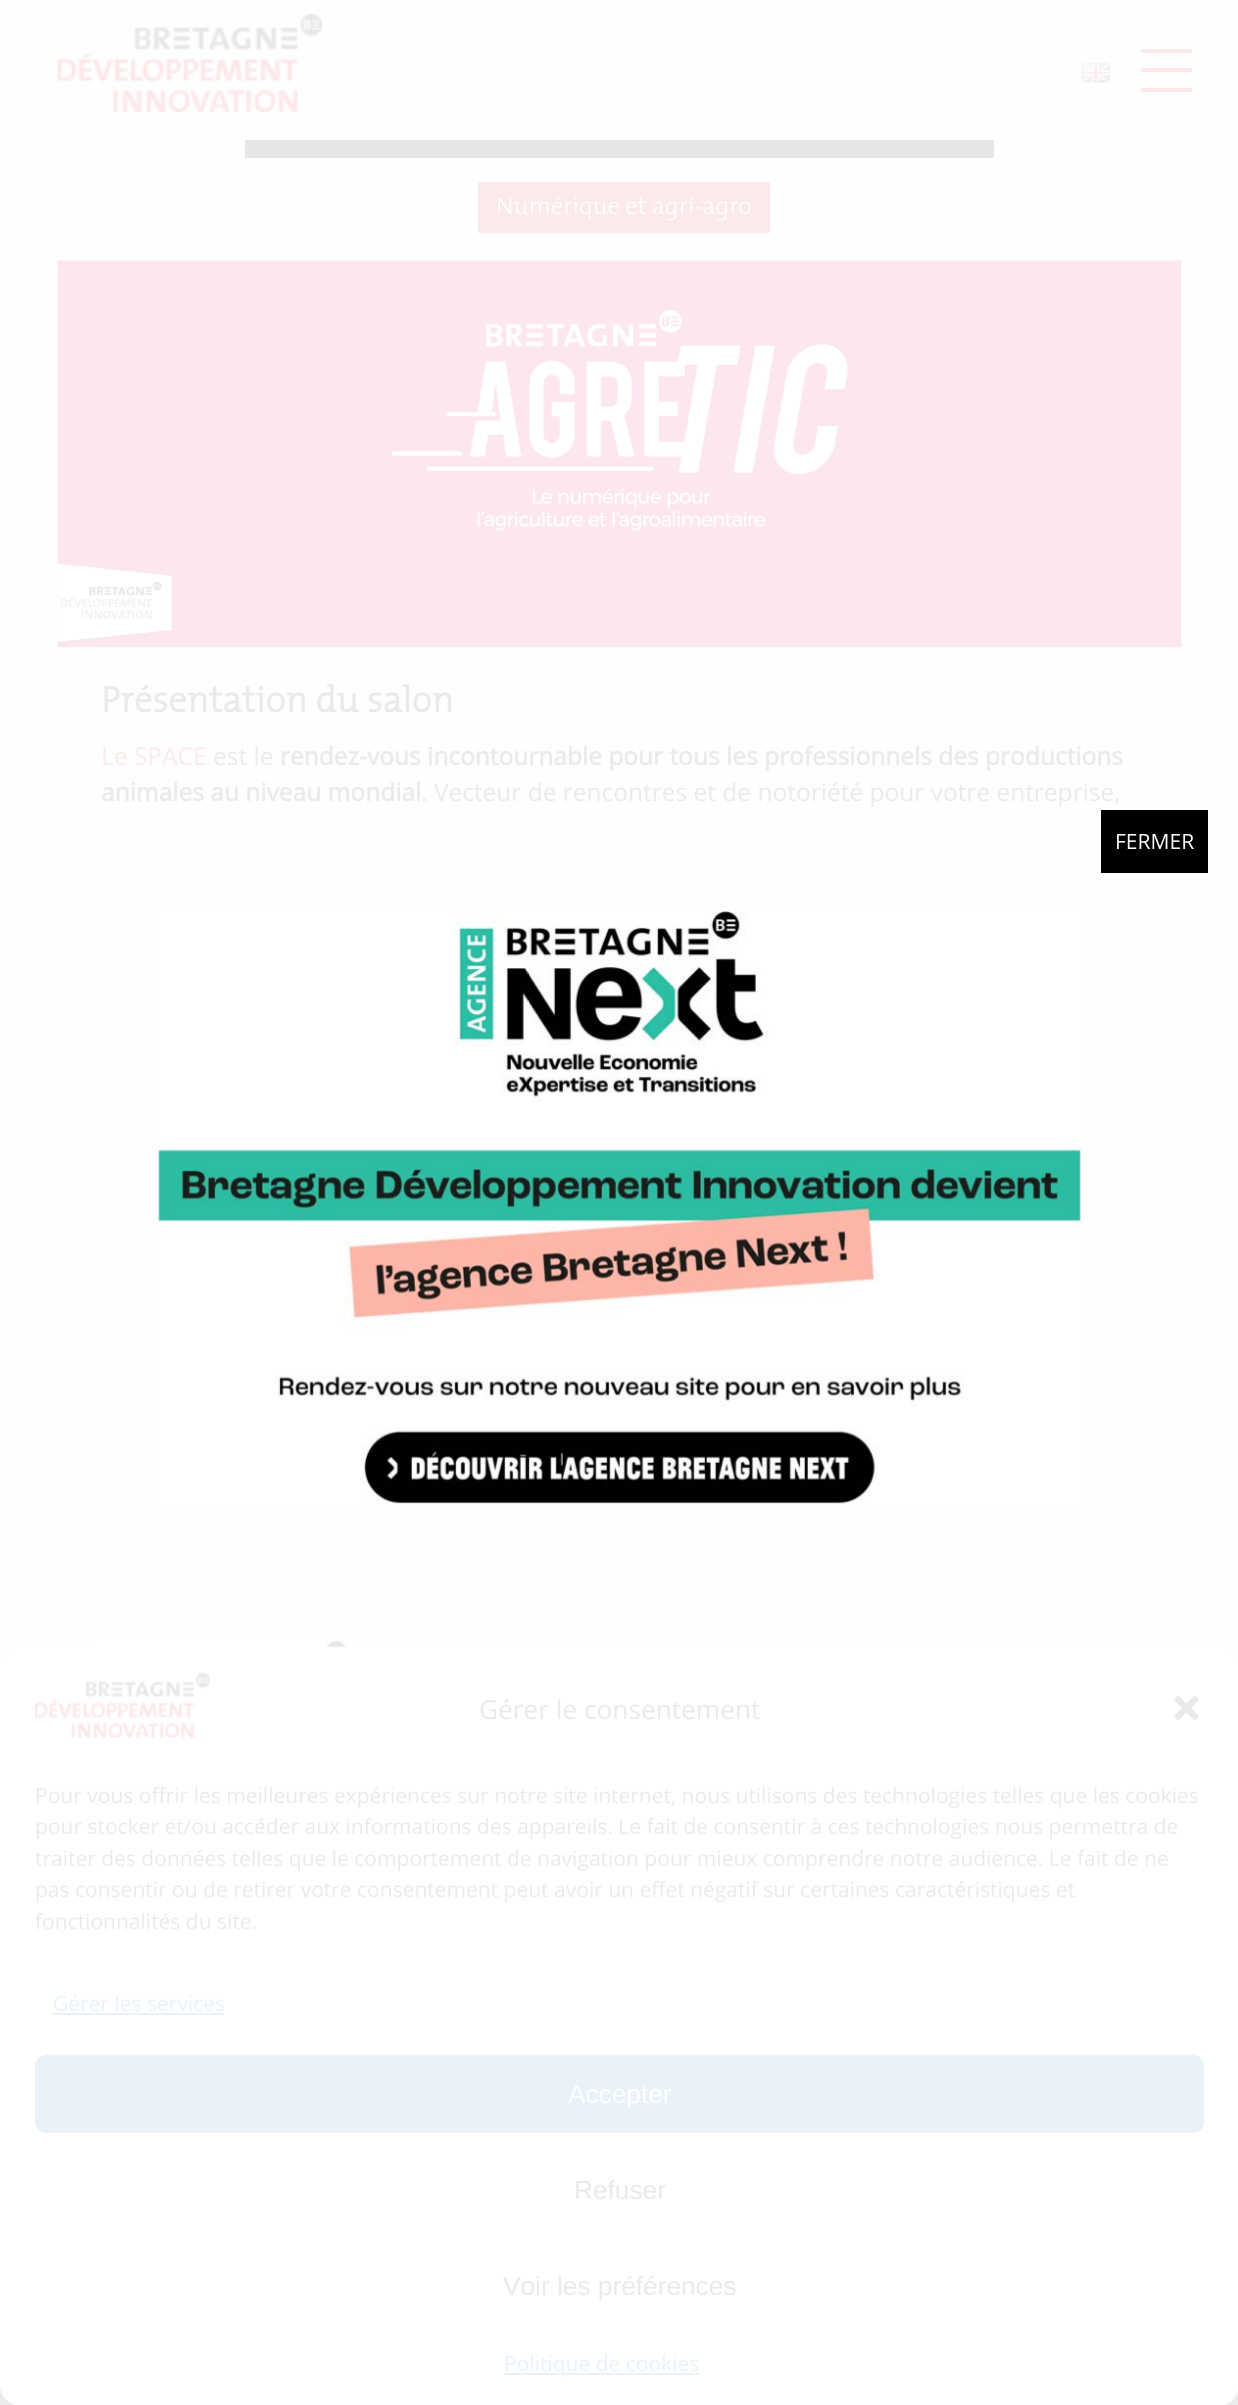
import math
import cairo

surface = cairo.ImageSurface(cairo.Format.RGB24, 1238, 2405)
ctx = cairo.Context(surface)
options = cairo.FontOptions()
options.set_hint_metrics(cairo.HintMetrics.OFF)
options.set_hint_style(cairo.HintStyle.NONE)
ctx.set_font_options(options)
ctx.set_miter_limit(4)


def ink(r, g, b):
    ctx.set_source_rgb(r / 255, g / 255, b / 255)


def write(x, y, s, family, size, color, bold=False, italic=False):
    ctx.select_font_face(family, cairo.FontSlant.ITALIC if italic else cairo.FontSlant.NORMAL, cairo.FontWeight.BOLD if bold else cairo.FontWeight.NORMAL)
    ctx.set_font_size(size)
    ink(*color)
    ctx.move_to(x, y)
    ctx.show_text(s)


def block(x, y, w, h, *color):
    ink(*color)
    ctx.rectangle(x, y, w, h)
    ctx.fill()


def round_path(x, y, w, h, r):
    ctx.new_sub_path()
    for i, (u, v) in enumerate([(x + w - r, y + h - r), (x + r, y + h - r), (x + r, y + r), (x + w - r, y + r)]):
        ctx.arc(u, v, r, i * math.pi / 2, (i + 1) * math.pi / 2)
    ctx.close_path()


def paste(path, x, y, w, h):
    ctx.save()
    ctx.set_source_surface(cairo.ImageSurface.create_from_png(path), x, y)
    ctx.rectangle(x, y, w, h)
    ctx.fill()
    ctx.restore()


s1 = dict(family="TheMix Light", size=24.5, color=(255, 255, 255))
s2 = dict(family="TheMix", size=36.75, color=(234, 234, 234), bold=True)
s3 = dict(family="Open Sans", size=24.5, color=(252, 233, 233))
s4 = dict(family="Open Sans", size=24.5, color=(234, 234, 234))
s5 = dict(family="Open Sans", size=24.5, color=(234, 234, 234), bold=True)
s6 = dict(family="Open Sans", size=21, color=(255, 255, 255))
s7 = dict(family="Open Sans", size=26.25, color=(234, 234, 234))
s8 = dict(family="Open Sans", size=21, color=(234, 234, 234))
s9 = dict(family="Open Sans", size=21, color=(233, 241, 249))
s10 = dict(family="Liberation Sans", size=26.25, color=(255, 255, 255))
s11 = dict(family="Liberation Sans", size=26.25, color=(234, 234, 234))

ink(254, 254, 254)
ctx.paint()
paste("pic1.png", 57, 14, 265, 98)
paste("pic2.png", 1081, 62, 29, 21)
block(1141, 49, 51, 4, 252, 233, 233)
block(1141, 68, 51, 4, 252, 233, 233)
block(1141, 88, 51, 4, 252, 233, 233)
block(245, 140, 749, 18, 230, 230, 230)
block(478, 182, 292, 51, 252, 233, 233)
write(496, 214, "Numérique et agri-agro", **s1)
paste("pic3.png", 57, 260, 1125, 388)
write(101, 712, "Présentation du salon", **s2)
write(101, 765, "Le SPACE", **s3)
write(213, 765, "est le", **s4)
write(280, 765, "rendez-vous incontournable pour tous les professionnels des productions", **s5)
write(101, 801, "animales au niveau mondial", **s5)
write(421, 801, ". Vecteur de rencontres et de notoriété pour votre entreprise,", **s4)
paste("pic4.png", 94, 1639, 255, 8)
block(1101, 810, 107, 63, 0, 0, 0)
write(1115, 849, "FERMER", **s6)
paste("pic5.png", 156, 906, 927, 603)
block(0, 2385, 1238, 20, 235, 235, 235)
ink(255, 255, 255)
round_path(0, 1647, 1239, 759, 21)
ctx.fill()
paste("pic6.png", 35, 1672, 175, 66)
write(479, 1719, "Gérer le consentement", **s7)
paste("pic7.png", 1174, 1696, 25, 24)
write(35, 1803, "Pour vous offrir les meilleures expériences sur notre site internet, nous utilisons des technologies telles que les cookies", **s8)
write(35, 1834, "pour stocker et/ou accéder aux informations des appareils. Le fait de consentir à ces technologies nous permettra de", **s8)
write(35, 1866, "traiter des données telles que le comportement de navigation pour mieux comprendre notre audience. Le fait de ne", **s8)
write(35, 1897, "pas consentir ou de retirer votre consentement peut avoir un effet négatif sur certaines caractéristiques et", **s8)
write(35, 1929, "fonctionnalités du site.", **s8)
write(53, 2011, "Gérer les services", **s9)
block(53, 2013, 171, 2, 233, 241, 249)
round_path(36, 2056, 1167, 76, 10)
ctx.fill_preserve()
ctx.stroke()
write(568, 2103, "Accepter", **s10)
write(574, 2199, "Refuser", **s11)
write(503, 2295, "Voir les préférences", **s11)
block(504, 2373, 196, 2, 233, 241, 249)
write(504, 2371, "Politique de cookies", **s9)
surface.write_to_png("screenshot.png")
